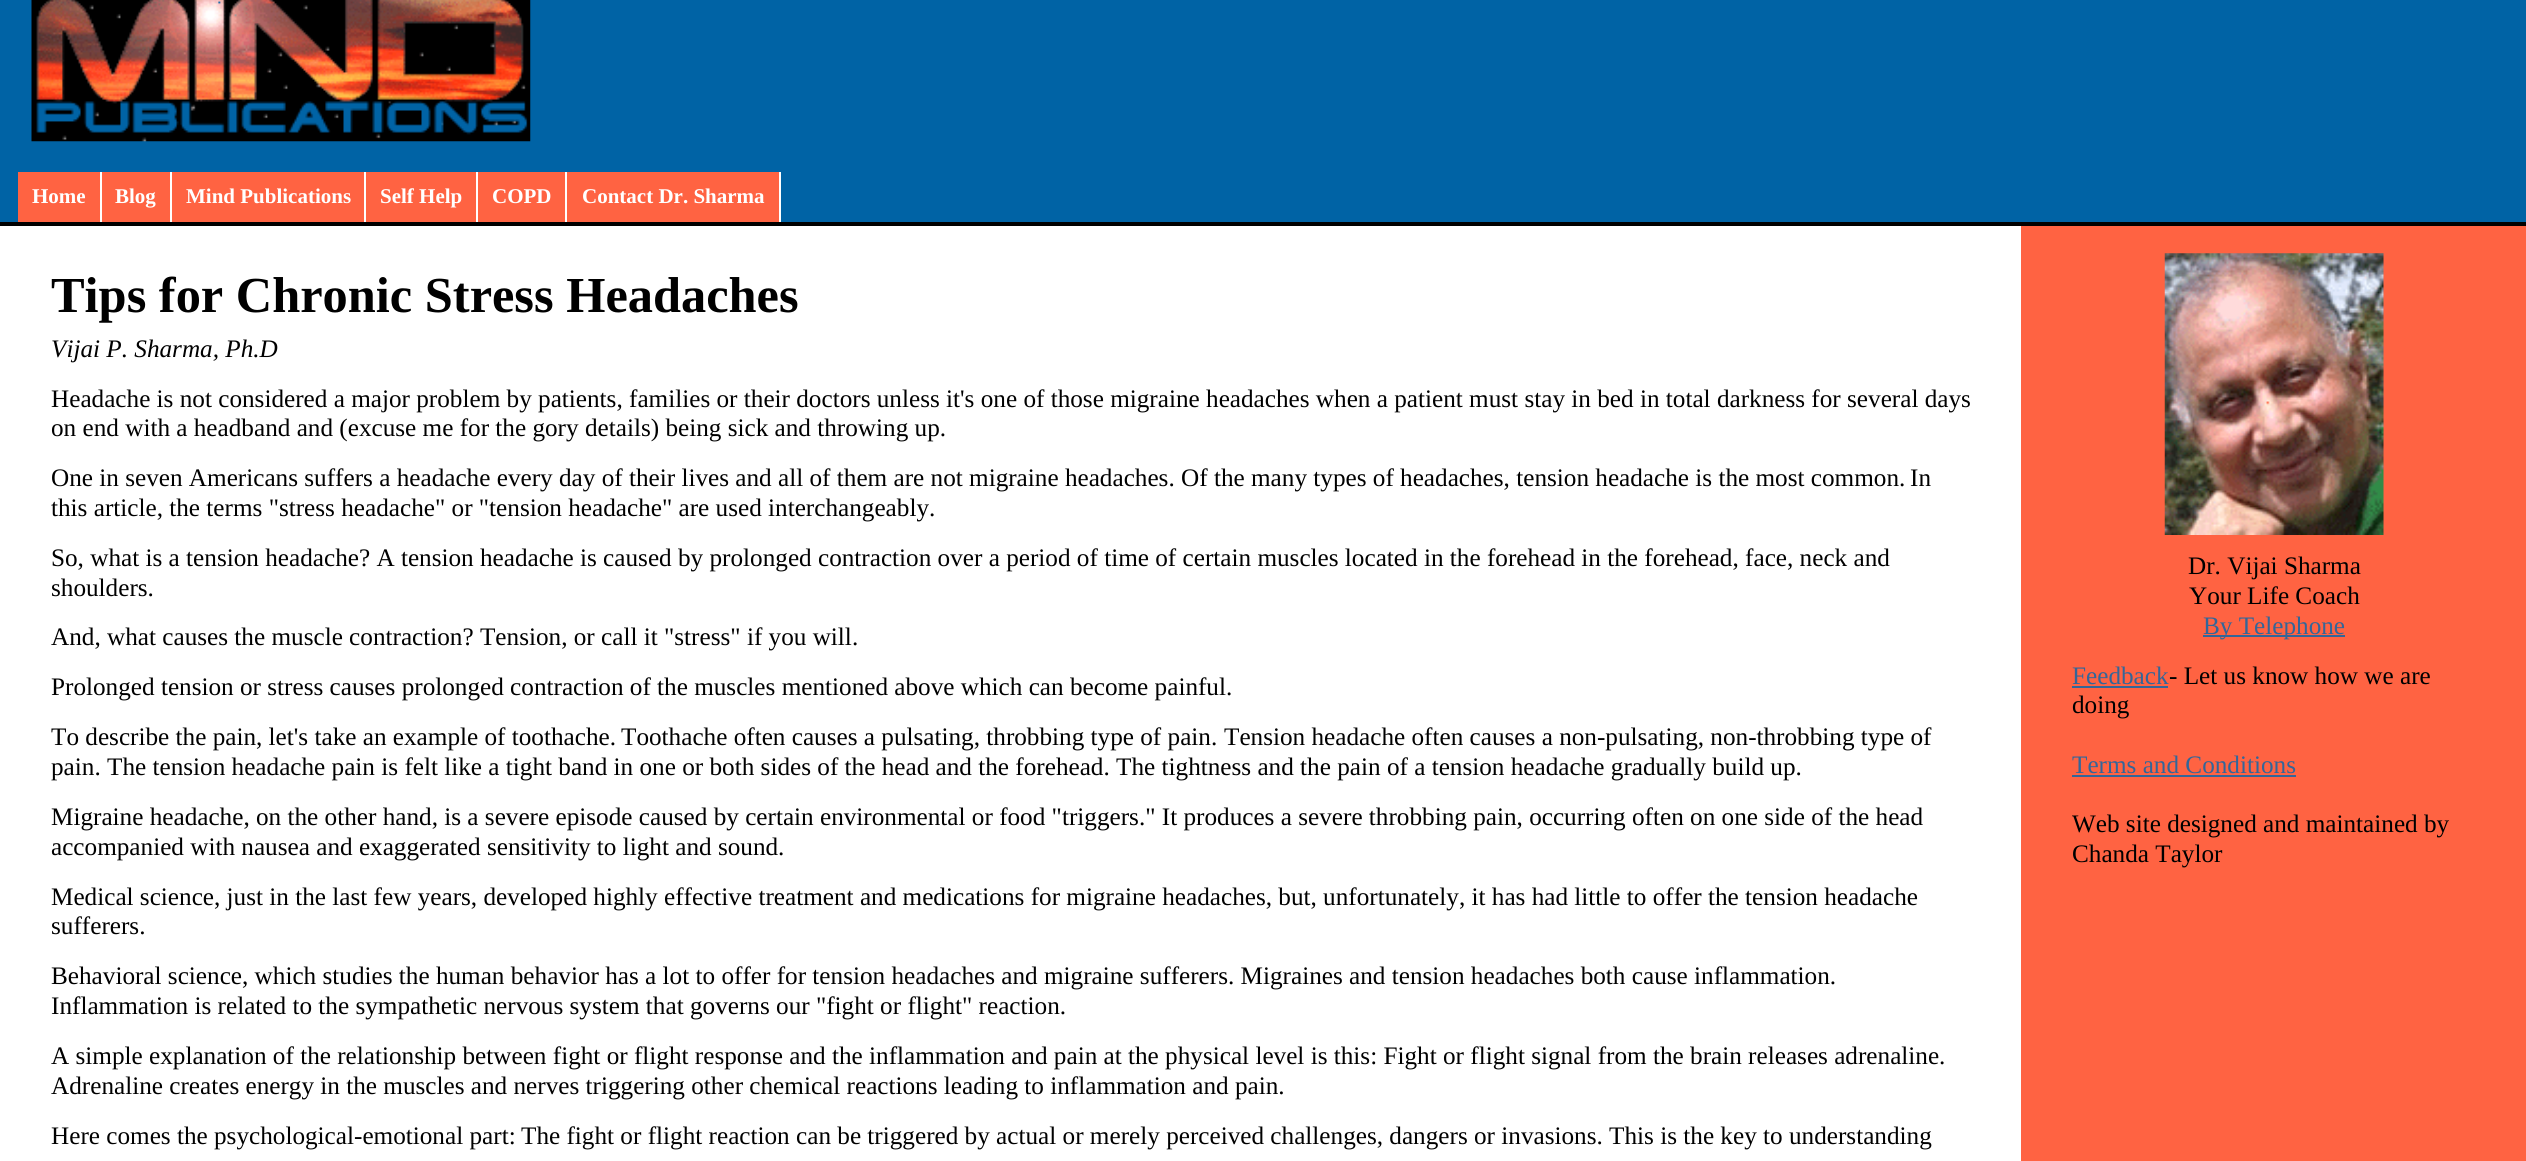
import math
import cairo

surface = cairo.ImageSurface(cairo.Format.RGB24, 2526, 1161)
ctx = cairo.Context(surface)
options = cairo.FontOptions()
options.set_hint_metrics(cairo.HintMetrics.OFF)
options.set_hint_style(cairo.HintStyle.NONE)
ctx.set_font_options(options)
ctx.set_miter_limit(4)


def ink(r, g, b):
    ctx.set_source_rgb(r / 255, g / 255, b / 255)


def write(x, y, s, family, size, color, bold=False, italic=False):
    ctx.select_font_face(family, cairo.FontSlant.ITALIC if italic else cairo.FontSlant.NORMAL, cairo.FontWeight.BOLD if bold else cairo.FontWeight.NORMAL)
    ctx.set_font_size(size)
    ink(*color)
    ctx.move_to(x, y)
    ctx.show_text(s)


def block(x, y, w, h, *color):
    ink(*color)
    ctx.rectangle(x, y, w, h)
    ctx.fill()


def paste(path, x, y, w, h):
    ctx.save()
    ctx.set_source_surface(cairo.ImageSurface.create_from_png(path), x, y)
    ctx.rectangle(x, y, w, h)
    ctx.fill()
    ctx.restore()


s1 = dict(family="Liberation Serif", size=21, color=(255, 255, 255), bold=True)
s2 = dict(family="Liberation Serif", size=50.4, color=(0, 0, 0), bold=True)
s3 = dict(family="Liberation Serif", size=25.2, color=(0, 0, 0), italic=True)
s4 = dict(family="Liberation Serif", size=25.2, color=(0, 0, 0))
s5 = dict(family="Liberation Serif", size=25.2, color=(51, 102, 153))

ink(0, 99, 165)
ctx.paint()
block(0, 222, 2526, 4, 0, 0, 0)
paste("pic1.png", 31, 0, 500, 142)
block(18, 172, 82, 50, 255, 99, 66)
block(100, 172, 2, 50, 255, 255, 255)
write(32, 203, "Home", **s1)
block(102, 172, 68, 50, 255, 99, 66)
block(170, 172, 2, 50, 255, 255, 255)
write(115, 203, "Blog", **s1)
block(172, 172, 192, 50, 255, 99, 66)
block(364, 172, 2, 50, 255, 255, 255)
write(186, 203, "Mind Publications", **s1)
block(366, 172, 110, 50, 255, 99, 66)
block(476, 172, 2, 50, 255, 255, 255)
write(380, 203, "Self Help", **s1)
block(478, 172, 87, 50, 255, 99, 66)
block(565, 172, 2, 50, 255, 255, 255)
write(492, 203, "COPD", **s1)
block(567, 172, 212, 50, 255, 99, 66)
block(779, 172, 2, 50, 255, 255, 255)
write(582, 203, "Contact Dr. Sharma", **s1)
block(2021, 226, 505, 935, 255, 99, 66)
block(0, 226, 2021, 935, 255, 255, 255)
write(51, 312, "Tips for Chronic Stress Headaches", **s2)
write(51, 357, "Vijai P. Sharma, Ph.D", **s3)
write(51, 407, "Headache is not considered a major problem by patients, families or their doctors unless it's one of those migraine headaches when a patient must stay in bed in total darkness for several days", **s4)
write(51, 436, "on end with a headband and (excuse me for the gory details) being sick and throwing up.", **s4)
write(51, 486, "One in seven Americans suffers a headache every day of their lives and all of them are not migraine headaches. Of the many types of headaches, tension headache is the most common.", **s4)
write(1910, 486, "In", **s4)
write(51, 516, "this article, the terms \"stress headache\" or \"tension headache\" are used interchangeably.", **s4)
write(51, 566, "So, what is a tension headache? A tension headache is caused by prolonged contraction over a period of time of certain muscles located in the forehead in the forehead, face, neck and", **s4)
write(51, 596, "shoulders.", **s4)
write(51, 645, "And, what causes the muscle contraction? Tension, or call it \"stress\" if you will.", **s4)
write(51, 695, "Prolonged tension or stress causes prolonged contraction of the muscles mentioned above which can become painful.", **s4)
write(51, 745, "To describe the pain, let's take an example of toothache.", **s4)
write(621, 745, "Toothache often causes a pulsating, throbbing type of pain.", **s4)
write(1224, 745, "Tension headache often causes a non-pulsating, non-throbbing type of", **s4)
write(51, 775, "pain. The tension headache pain is felt like a tight band in one or both sides of the head and the forehead. The tightness and the pain of a tension headache gradually build up.", **s4)
write(51, 825, "Migraine headache, on the other hand, is a severe episode caused by certain environmental or food \"triggers.\" It produces a severe throbbing pain, occurring often on one side of the head", **s4)
write(51, 855, "accompanied with nausea and exaggerated sensitivity to light and sound.", **s4)
write(51, 905, "Medical science, just in the last few years, developed highly effective treatment and medications for migraine headaches, but, unfortunately, it has had little to offer the tension headache", **s4)
write(51, 934, "sufferers.", **s4)
write(51, 984, "Behavioral science, which studies the human behavior has a lot to offer for tension headaches and migraine sufferers. Migraines and tension headaches both cause inflammation.", **s4)
write(51, 1014, "Inflammation is related to the sympathetic nervous system that governs our \"fight or flight\" reaction.", **s4)
write(51, 1064, "A simple explanation of the relationship between fight or flight response and the inflammation and pain at the physical level is this: Fight or flight signal from the brain releases adrenaline.", **s4)
write(51, 1094, "Adrenaline creates energy in the muscles and nerves triggering other chemical reactions leading to inflammation and pain.", **s4)
write(51, 1144, "Here comes the psychological-emotional part:", **s4)
write(521, 1144, "The fight or flight reaction can be triggered by actual or merely perceived challenges, dangers or invasions. This is the key to understanding", **s4)
paste("pic2.png", 2164, 253, 220, 282)
write(2188, 574, "Dr. Vijai Sharma", **s4)
write(2189, 604, "Your Life Coach", **s4)
block(2203, 635, 142, 2, 51, 102, 153)
write(2203, 634, "By Telephone", **s5)
write(2072, 684, "Feedback", **s5)
block(2072, 686, 96, 2, 51, 102, 153)
write(2169, 684, "- Let us know how we are", **s4)
write(2072, 713, "doing", **s4)
write(2072, 773, "Terms and Conditions", **s5)
block(2072, 775, 224, 2, 51, 102, 153)
write(2072, 832, "Web site designed and maintained by", **s4)
write(2072, 862, "Chanda Taylor", **s4)
surface.write_to_png("screenshot.png")
